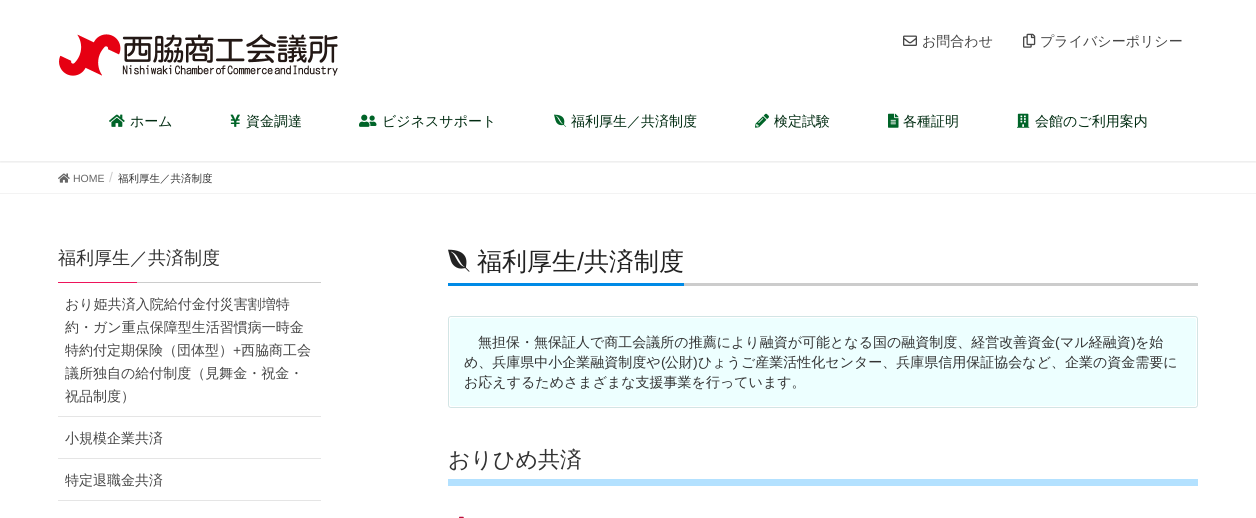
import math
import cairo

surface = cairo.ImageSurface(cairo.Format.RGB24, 1256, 518)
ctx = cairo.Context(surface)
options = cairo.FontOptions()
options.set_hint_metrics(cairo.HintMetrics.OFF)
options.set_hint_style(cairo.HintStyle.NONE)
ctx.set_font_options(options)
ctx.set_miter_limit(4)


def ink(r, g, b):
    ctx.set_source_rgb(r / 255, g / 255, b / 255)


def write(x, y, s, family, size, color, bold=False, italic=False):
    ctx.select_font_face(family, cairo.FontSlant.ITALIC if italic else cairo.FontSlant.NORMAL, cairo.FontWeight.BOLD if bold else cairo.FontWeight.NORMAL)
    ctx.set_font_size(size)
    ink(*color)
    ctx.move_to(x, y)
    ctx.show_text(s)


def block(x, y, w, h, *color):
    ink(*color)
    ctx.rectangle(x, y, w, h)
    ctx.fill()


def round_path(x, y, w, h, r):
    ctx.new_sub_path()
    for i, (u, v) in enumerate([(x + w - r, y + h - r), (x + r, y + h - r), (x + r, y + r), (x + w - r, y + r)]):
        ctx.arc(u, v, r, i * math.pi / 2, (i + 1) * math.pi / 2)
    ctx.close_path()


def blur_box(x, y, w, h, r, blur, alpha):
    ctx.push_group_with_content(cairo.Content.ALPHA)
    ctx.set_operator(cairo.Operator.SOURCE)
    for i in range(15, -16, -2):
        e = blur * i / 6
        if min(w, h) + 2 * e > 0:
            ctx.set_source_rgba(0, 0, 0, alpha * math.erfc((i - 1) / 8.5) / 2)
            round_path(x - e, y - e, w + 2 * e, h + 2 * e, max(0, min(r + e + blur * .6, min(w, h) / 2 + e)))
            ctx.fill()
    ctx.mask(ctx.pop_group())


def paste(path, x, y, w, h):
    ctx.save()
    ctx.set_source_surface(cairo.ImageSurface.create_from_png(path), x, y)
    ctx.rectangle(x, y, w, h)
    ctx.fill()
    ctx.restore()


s1 = dict(family="WenQuanYi Zen Hei Medium", size=14, color=(70, 70, 70))
s2 = dict(family="WenQuanYi Zen Hei Medium", size=14, color=(0, 43, 17))
s3 = dict(family="Liberation Sans", size=10.5, color=(102, 102, 102))
s4 = dict(family="Liberation Sans", size=14, color=(204, 204, 204))
s5 = dict(family="WenQuanYi Zen Hei Medium", size=10.5, color=(51, 51, 51))
s6 = dict(family="WenQuanYi Zen Hei Medium", size=18, color=(51, 51, 51))
s7 = dict(family="Liberation Sans", size=14, color=(70, 70, 70))
s8 = dict(family="WenQuanYi Zen Hei Medium", size=25, color=(34, 34, 34))
s9 = dict(family="Liberation Sans", size=25, color=(34, 34, 34))
s10 = dict(family="WenQuanYi Zen Hei Medium", size=14, color=(51, 51, 51))
s11 = dict(family="Liberation Sans", size=14, color=(51, 51, 51))
s12 = dict(family="WenQuanYi Zen Hei Medium", size=22, color=(51, 51, 51))

ink(255, 255, 255)
ctx.paint()
ctx.save()
ctx.rectangle(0, 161, 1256, 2)
ctx.clip()
ink(0, 0, 0)
blur_box(0, 1, 1256, 161, 0, 1.5, 0.1)
ctx.restore()
paste("pic1.png", 59, 34, 279, 42)
paste("pic2.png", 903, 35, 14, 11)
write(922, 46, "お問合わせ", **s1)
paste("pic3.png", 1023, 33, 13, 15)
write(1040, 46, "プライバシーポリシー", **s1)
paste("pic4.png", 109, 114, 16, 13)
write(130, 126, "ホーム", **s2)
paste("pic5.png", 230, 114, 10, 13)
write(246, 126, "資金調達", **s2)
paste("pic6.png", 359, 114, 18, 13)
write(382, 126, "ビジネスサポート", **s2)
paste("pic7.png", 554, 114, 13, 13)
write(571, 126, "福利厚生／共済制度", **s2)
paste("pic8.png", 755, 113, 14, 15)
write(774, 126, "検定試験", **s2)
paste("pic9.png", 888, 113, 11, 15)
write(903, 126, "各種証明", **s2)
paste("pic10.png", 1017, 113, 13, 15)
write(1035, 126, "会館のご利用案内", **s2)
block(0, 193, 1256, 1, 243, 243, 243)
paste("pic11.png", 58, 173, 12, 10)
write(73, 182, "HOME", **s3)
write(109, 182, "/", **s4)
write(118, 182, "福利厚生／共済制度", **s5)
block(137, 282, 184, 1, 204, 204, 204)
write(58, 264, "福利厚生／共済制度", **s6)
block(58, 282, 79, 1, 237, 20, 91)
block(58, 416, 263, 1, 229, 229, 229)
write(65, 309, "おり姫共済入院給付金付災害割増特", **s1)
write(65, 332, "約・ガン重点保障型生活習慣病一時金", **s1)
write(65, 355, "特約付定期保険（団体型）", **s1)
write(233, 355, "+", **s7)
write(241, 355, "西脇商工会", **s1)
write(65, 378, "議所独自の給付制度（見舞金・祝金・", **s1)
write(65, 401, "祝品制度）", **s1)
block(58, 458, 263, 1, 229, 229, 229)
write(65, 443, "小規模企業共済", **s1)
block(58, 500, 263, 1, 229, 229, 229)
write(65, 485, "特定退職金共済", **s1)
paste("pic12.png", 448, 249, 22, 23)
write(477, 270, "福利厚生", **s8)
write(577, 270, "/", **s9)
write(584, 270, "共済制度", **s8)
block(448, 283, 236, 3, 0, 138, 230)
block(684, 283, 514, 3, 204, 204, 204)
round_path(448.5, 316.5, 749, 91, 2.5)
ink(211, 229, 229)
ctx.set_line_width(1)
ctx.stroke()
ink(237, 255, 255)
round_path(449.5, 317.5, 747, 89, 2.5)
ctx.fill_preserve()
ink(255, 255, 255)
ctx.stroke()
write(478, 347, "無担保・無保証人で商工会議所の推薦により融資が可能となる国の融資制度、経営改善資金", **s10)
write(1055, 347, "(", **s11)
write(1060, 347, "マル経融資", **s10)
write(1131, 347, ")", **s11)
write(1135, 347, "を始", **s10)
write(464, 367, "め、兵庫県中小企業融資制度や", **s10)
write(661, 367, "(", **s11)
write(665, 367, "公財", **s10)
write(693, 367, ")", **s11)
write(698, 367, "ひょうご産業活性化センター、兵庫県信用保証協会など、企業の資金需要に", **s10)
write(464, 387, "お応えするためさまざまな支援事業を行っています。", **s10)
write(448, 467, "おりひめ共済", **s12)
block(448, 479, 750, 7, 179, 225, 255)
paste("pic13.png", 459, 516, 5, 2)
surface.write_to_png("screenshot.png")
